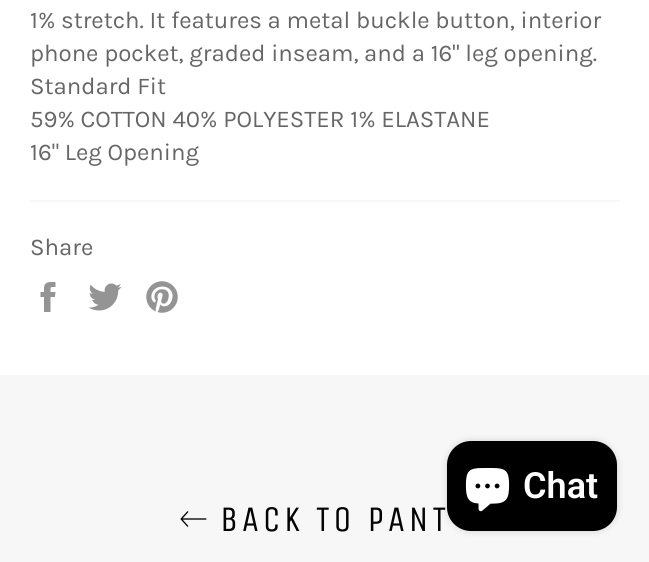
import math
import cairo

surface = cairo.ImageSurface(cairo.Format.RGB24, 649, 562)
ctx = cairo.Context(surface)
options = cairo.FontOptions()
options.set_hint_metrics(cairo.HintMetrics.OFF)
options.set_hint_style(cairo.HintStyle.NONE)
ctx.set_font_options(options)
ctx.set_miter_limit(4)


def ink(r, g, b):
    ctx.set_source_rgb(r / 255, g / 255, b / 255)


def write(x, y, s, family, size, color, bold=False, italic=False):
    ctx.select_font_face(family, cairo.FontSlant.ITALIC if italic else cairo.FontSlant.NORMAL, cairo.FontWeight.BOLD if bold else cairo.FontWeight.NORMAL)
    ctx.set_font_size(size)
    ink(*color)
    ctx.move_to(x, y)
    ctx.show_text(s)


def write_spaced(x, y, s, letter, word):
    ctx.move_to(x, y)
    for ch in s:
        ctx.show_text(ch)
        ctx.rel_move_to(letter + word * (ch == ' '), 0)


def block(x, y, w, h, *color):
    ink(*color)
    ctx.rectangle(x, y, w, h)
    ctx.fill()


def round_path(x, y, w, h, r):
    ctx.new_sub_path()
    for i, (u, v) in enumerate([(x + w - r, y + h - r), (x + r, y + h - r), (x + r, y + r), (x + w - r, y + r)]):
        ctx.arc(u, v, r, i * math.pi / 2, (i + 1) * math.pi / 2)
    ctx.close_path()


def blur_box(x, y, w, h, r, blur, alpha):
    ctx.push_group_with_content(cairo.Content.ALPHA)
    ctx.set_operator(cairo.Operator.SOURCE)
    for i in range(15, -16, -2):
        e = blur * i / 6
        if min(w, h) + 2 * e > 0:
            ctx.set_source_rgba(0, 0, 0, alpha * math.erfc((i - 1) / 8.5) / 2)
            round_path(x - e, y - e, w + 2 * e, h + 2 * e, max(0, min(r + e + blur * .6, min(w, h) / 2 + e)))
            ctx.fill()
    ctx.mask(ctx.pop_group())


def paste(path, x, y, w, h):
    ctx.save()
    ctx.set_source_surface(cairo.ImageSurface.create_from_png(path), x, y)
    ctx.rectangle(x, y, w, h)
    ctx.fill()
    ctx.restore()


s1 = dict(family="Karla", size=24, color=(102, 102, 102))
s2 = dict(family="Roboto SemiBold", size=36, color=(255, 255, 255))

ink(255, 255, 255)
ctx.paint()
write(30, 28, "1% stretch. It features a metal buckle button, interior", **s1)
write(30, 61, "phone pocket, graded inseam, and a 16\" leg opening.", **s1)
write(30, 94, "Standard Fit", **s1)
write(30, 127, "59% COTTON 40% POLYESTER 1% ELASTANE", **s1)
write(30, 160, "16\" Leg Opening", **s1)
block(30, 200, 590, 2, 247, 247, 247)
write(30, 255, "Share", **s1)
paste("pic1.png", 40, 282, 16, 30)
paste("pic2.png", 88, 283, 34, 28)
paste("pic3.png", 146, 281, 32, 32)
block(0, 375, 649, 187, 247, 247, 247)
paste("pic4.png", 180, 511, 27, 16)
ctx.select_font_face("Unica One")
ctx.set_font_size(36)
ink(3, 3, 3)
write_spaced(220, 531, "BACK TO PANT", 3.6, 0)
ink(0, 0, 0)
blur_box(447, 441, 170, 90, 24, 4, 0.15)
ink(0, 0, 0)
round_path(447, 441, 170, 90, 24)
ctx.fill()
paste("pic5.png", 465, 468, 45, 44)
write(523, 498, "Chat", **s2)
surface.write_to_png("screenshot.png")
